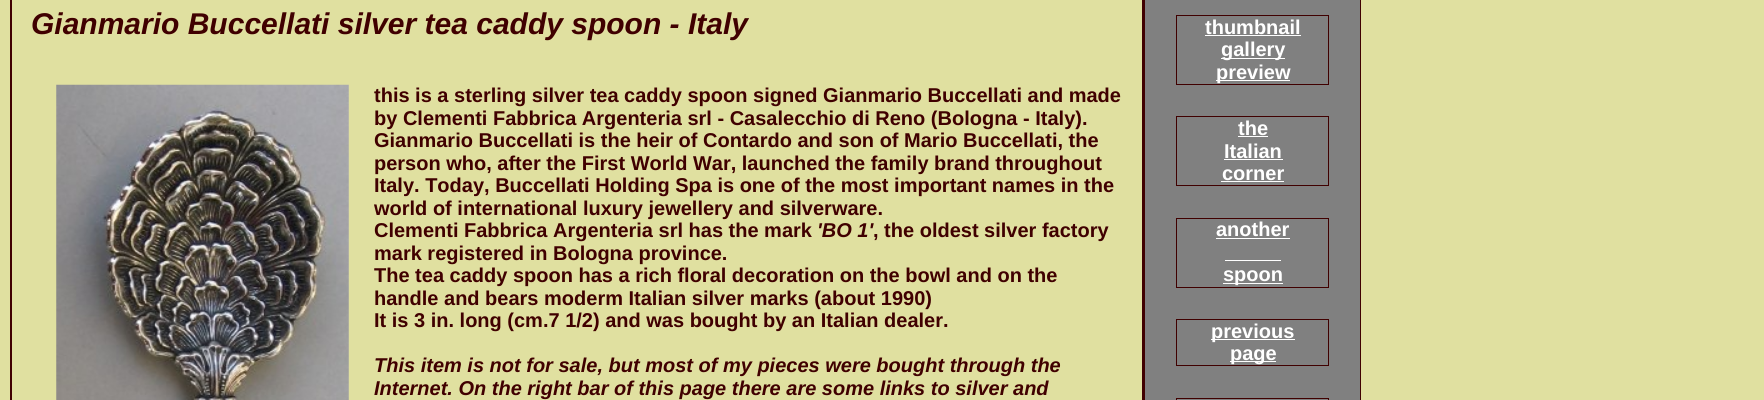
import math
import cairo

surface = cairo.ImageSurface(cairo.Format.RGB24, 1764, 400)
ctx = cairo.Context(surface)
options = cairo.FontOptions()
options.set_hint_metrics(cairo.HintMetrics.OFF)
options.set_hint_style(cairo.HintStyle.NONE)
ctx.set_font_options(options)
ctx.set_miter_limit(4)


def ink(r, g, b):
    ctx.set_source_rgb(r / 255, g / 255, b / 255)


def write(x, y, s, family, size, color, bold=False, italic=False):
    ctx.select_font_face(family, cairo.FontSlant.ITALIC if italic else cairo.FontSlant.NORMAL, cairo.FontWeight.BOLD if bold else cairo.FontWeight.NORMAL)
    ctx.set_font_size(size)
    ink(*color)
    ctx.move_to(x, y)
    ctx.show_text(s)


def block(x, y, w, h, *color):
    ink(*color)
    ctx.rectangle(x, y, w, h)
    ctx.fill()


def paste(path, x, y, w, h):
    ctx.save()
    ctx.set_source_surface(cairo.ImageSurface.create_from_png(path), x, y)
    ctx.rectangle(x, y, w, h)
    ctx.fill()
    ctx.restore()


s1 = dict(family="Liberation Sans", size=30, color=(64, 0, 0), bold=True, italic=True)
s2 = dict(family="Liberation Sans", size=20, color=(64, 0, 0), bold=True)
s3 = dict(family="Liberation Sans", size=20, color=(64, 0, 0), bold=True, italic=True)
s4 = dict(family="Liberation Sans", size=20, color=(255, 255, 255), bold=True)

ink(224, 224, 160)
ctx.paint()
ctx.rectangle(10.5, -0.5, 1133, 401)
ink(64, 0, 0)
ctx.set_line_width(1)
ctx.stroke()
ctx.rectangle(11.5, -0.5, 1131, 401)
ctx.stroke()
write(31, 34, "Gianmario Buccellati silver tea caddy spoon - Italy", **s1)
paste("pic1.png", 56, 84, 293, 316)
write(374, 102, "this is a sterling silver tea caddy spoon signed Gianmario Buccellati and made", **s2)
write(374, 125, "by Clementi Fabbrica Argenteria srl - Casalecchio di Reno (Bologna - Italy).", **s2)
write(374, 147, "Gianmario Buccellati is the heir of Contardo and son of Mario Buccellati, the", **s2)
write(374, 170, "person who, after the First World War, launched the family brand throughout", **s2)
write(374, 192, "Italy. Today, Buccellati Holding Spa is one of the most important names in the", **s2)
write(374, 215, "world of international luxury jewellery and silverware.", **s2)
write(374, 237, "Clementi Fabbrica Argenteria srl has the mark", **s2)
write(817, 237, "'BO 1'", **s3)
write(873, 237, ", the oldest silver factory", **s2)
write(374, 260, "mark registered in Bologna province.", **s2)
write(374, 282, "The tea caddy spoon has a rich floral decoration on the bowl and on the", **s2)
write(374, 305, "handle and bears moderm Italian silver marks (about 1990)", **s2)
write(374, 327, "It is 3 in. long (cm.7 1/2) and was bought by an Italian dealer.", **s2)
write(374, 372, "This item is not for sale, but most of my pieces were bought through the", **s3)
write(374, 395, "Internet. On the right bar of this page there are some links to silver and", **s3)
ink(128, 128, 128)
ctx.rectangle(1144.5, -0.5, 216, 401)
ctx.fill_preserve()
ink(64, 0, 0)
ctx.stroke()
ctx.rectangle(1176.5, 15.5, 152, 69)
ctx.stroke()
write(1205, 34, "thumbnail", **s4)
block(1205, 35, 96, 1, 255, 255, 255)
block(1221, 58, 64, 1, 255, 255, 255)
write(1221, 56, "gallery", **s4)
block(1216, 80, 74, 1, 255, 255, 255)
write(1216, 79, "preview", **s4)
ctx.rectangle(1176.5, 116.5, 152, 69)
ink(64, 0, 0)
ctx.stroke()
write(1238, 135, "the", **s4)
block(1238, 136, 30, 1, 255, 255, 255)
write(1224, 158, "Italian", **s4)
block(1224, 159, 59, 1, 255, 255, 255)
write(1222, 180, "corner", **s4)
block(1221, 181, 63, 1, 255, 255, 255)
ctx.rectangle(1176.5, 218.5, 152, 69)
ink(64, 0, 0)
ctx.stroke()
write(1216, 236, "another", **s4)
block(1216, 238, 74, 1, 255, 255, 255)
block(1225, 260, 56, 1, 255, 255, 255)
block(1223, 283, 60, 1, 255, 255, 255)
write(1223, 281, "spoon", **s4)
ctx.rectangle(1176.5, 319.5, 152, 46)
ink(64, 0, 0)
ctx.stroke()
block(1211, 339, 84, 1, 255, 255, 255)
write(1211, 338, "previous", **s4)
block(1230, 361, 46, 1, 255, 255, 255)
write(1230, 360, "page", **s4)
ctx.rectangle(1176.5, 398.5, 152, 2)
ink(64, 0, 0)
ctx.stroke()
surface.write_to_png("screenshot.png")
